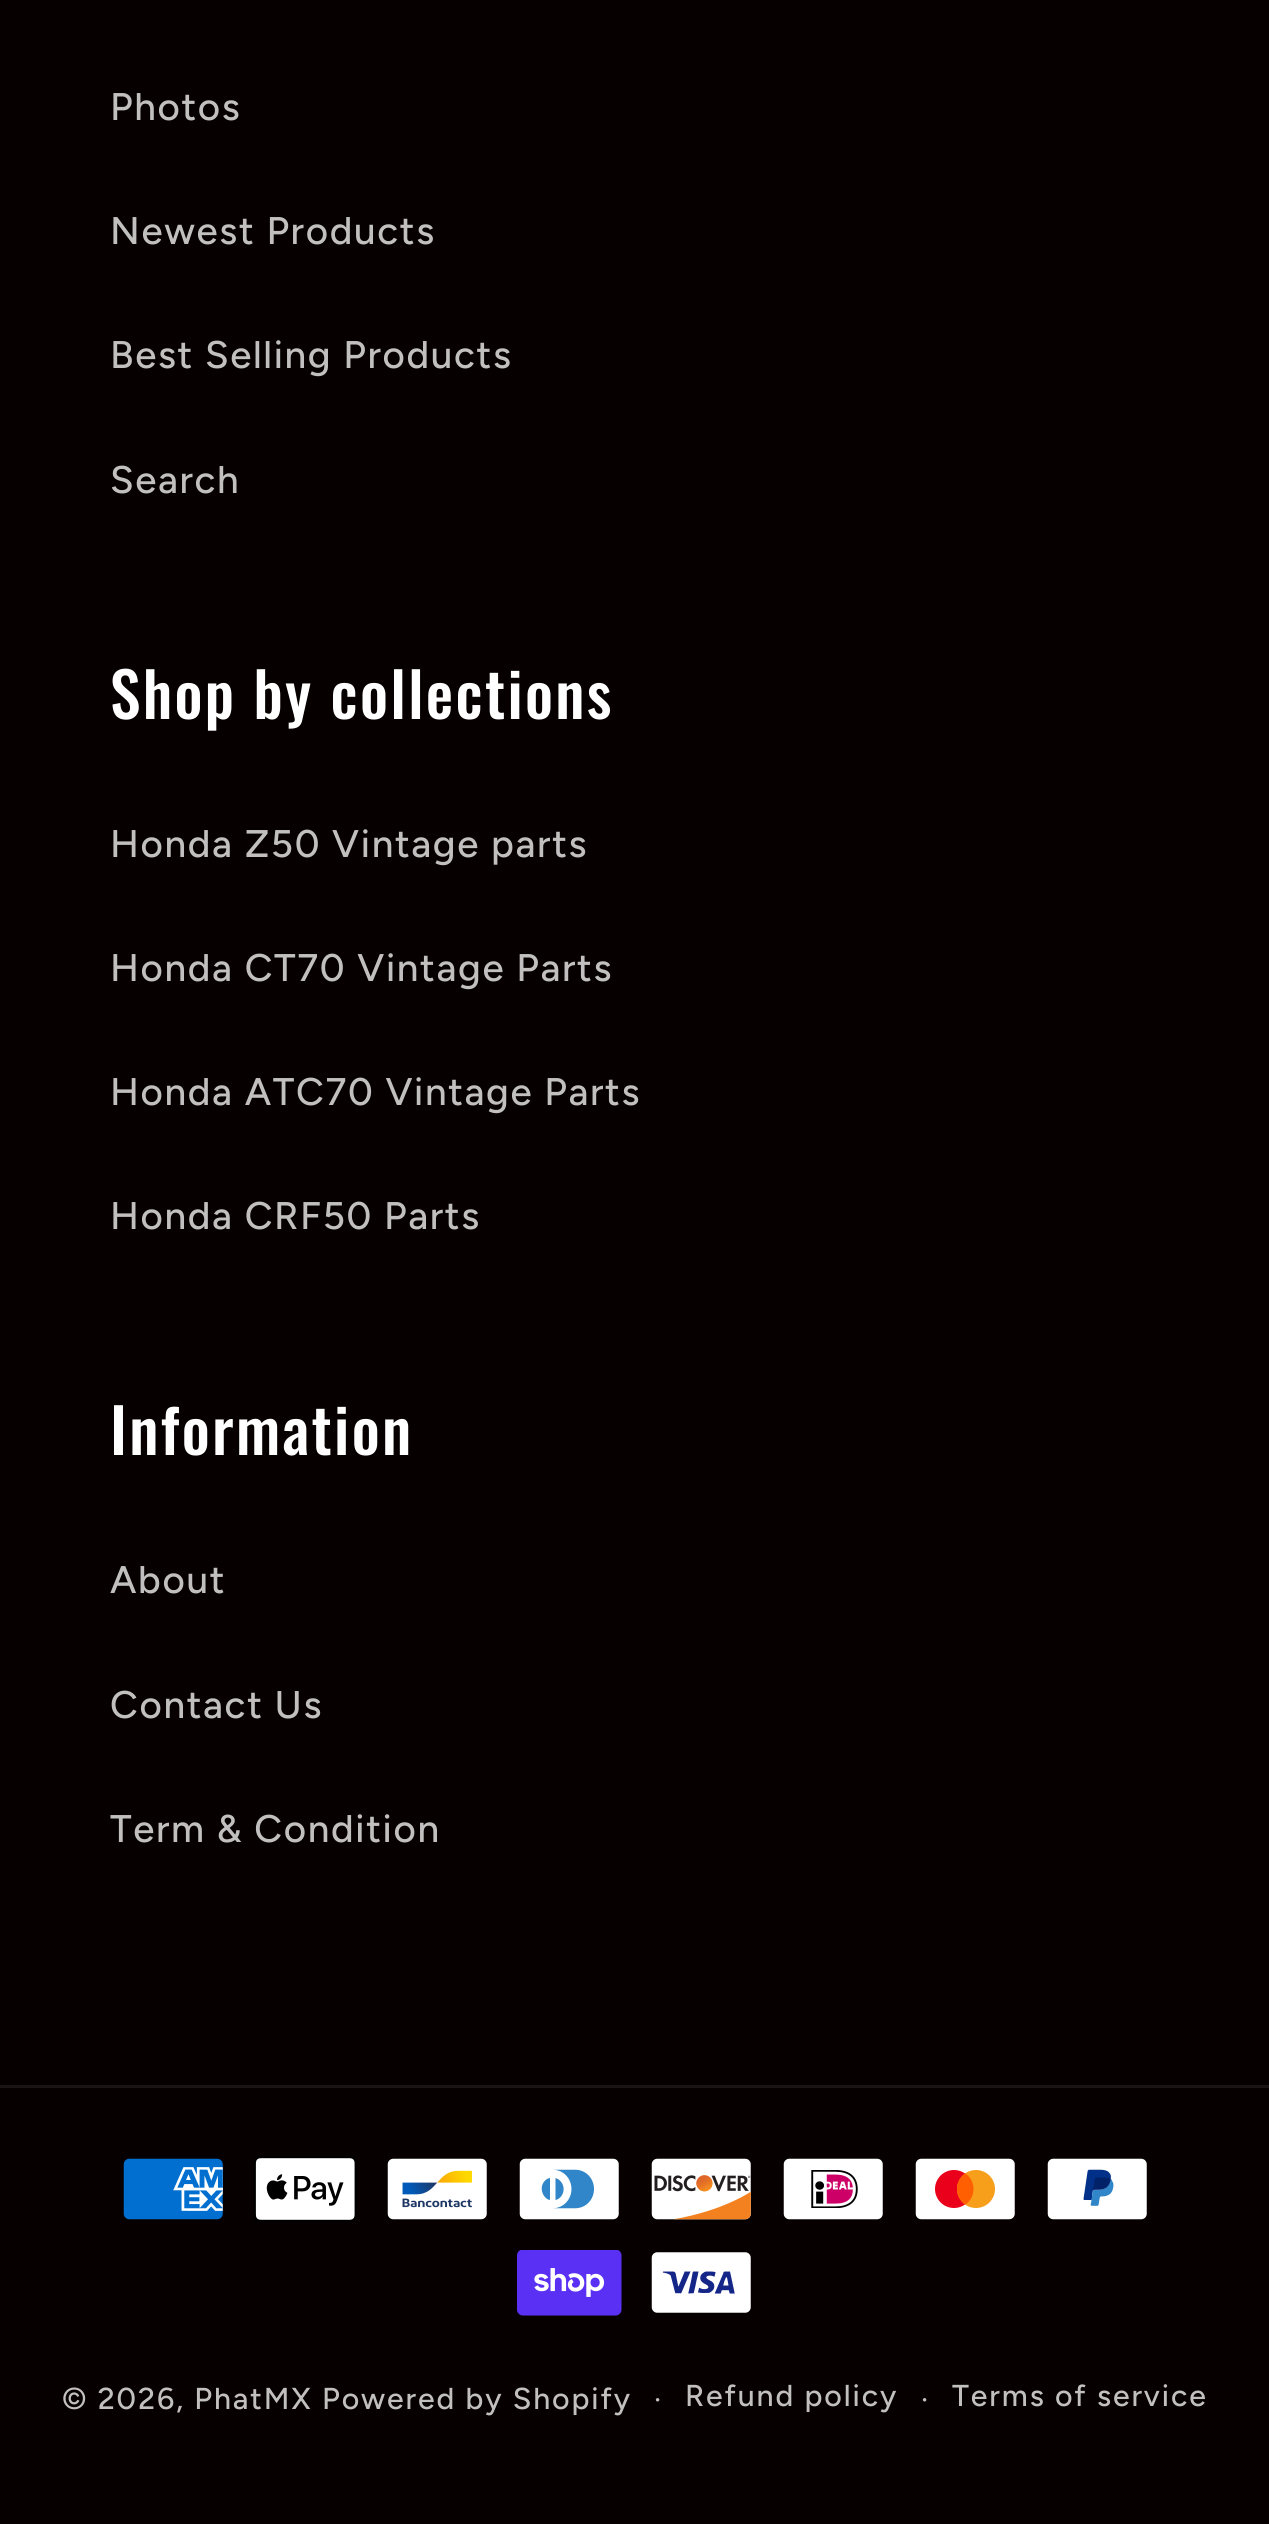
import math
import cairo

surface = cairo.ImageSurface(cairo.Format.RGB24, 1269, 2524)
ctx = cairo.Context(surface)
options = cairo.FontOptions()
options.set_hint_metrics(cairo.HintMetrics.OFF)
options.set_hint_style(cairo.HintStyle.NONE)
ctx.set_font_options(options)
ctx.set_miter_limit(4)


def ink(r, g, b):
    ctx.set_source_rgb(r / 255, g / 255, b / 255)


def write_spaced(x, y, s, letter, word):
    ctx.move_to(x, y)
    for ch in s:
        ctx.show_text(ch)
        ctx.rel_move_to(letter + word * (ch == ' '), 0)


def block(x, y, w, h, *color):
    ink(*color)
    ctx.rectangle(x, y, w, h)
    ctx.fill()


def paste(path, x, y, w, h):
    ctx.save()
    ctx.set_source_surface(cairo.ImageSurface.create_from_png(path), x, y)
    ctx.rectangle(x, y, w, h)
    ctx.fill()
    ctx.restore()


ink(6, 0, 0)
ctx.paint()
ctx.select_font_face("Figtree Medium")
ctx.set_font_size(38.5)
ink(193, 191, 191)
write_spaced(110, 120, "Photos", 1.65, 0)
write_spaced(110, 244, "Newest Products", 1.65, 0)
write_spaced(110, 368, "Best Selling Products", 1.65, 0)
write_spaced(110, 493, "Search", 1.65, 0)
ctx.select_font_face("Oswald Medium")
ctx.set_font_size(61.5)
ink(255, 255, 255)
write_spaced(110, 719, "Shop by collections", 2.3, 0)
ctx.select_font_face("Figtree Medium")
ctx.set_font_size(38.5)
ink(193, 191, 191)
write_spaced(110, 857, "Honda Z50 Vintage parts", 1.65, 0)
write_spaced(110, 981, "Honda CT70 Vintage Parts", 1.65, 0)
write_spaced(110, 1105, "Honda ATC70 Vintage Parts", 1.65, 0)
write_spaced(110, 1229, "Honda CRF50 Parts", 1.65, 0)
ctx.select_font_face("Oswald Medium")
ctx.set_font_size(61.5)
ink(255, 255, 255)
write_spaced(110, 1455, "Information", 2.3, 0)
ctx.select_font_face("Figtree Medium")
ctx.set_font_size(38.5)
ink(193, 191, 191)
write_spaced(110, 1593, "About", 1.65, 0)
write_spaced(110, 1718, "Contact Us", 1.65, 0)
write_spaced(110, 1842, "Term & Condition", 1.65, 0)
block(0, 2085, 1269, 3, 26, 20, 20)
paste("pic1.png", 123, 2158, 100, 62)
paste("pic2.png", 254, 2156, 103, 66)
paste("pic3.png", 387, 2158, 100, 62)
paste("pic4.png", 519, 2158, 100, 62)
paste("pic5.png", 651, 2158, 100, 62)
paste("pic6.png", 783, 2158, 100, 62)
paste("pic7.png", 915, 2158, 100, 62)
paste("pic8.png", 1047, 2158, 100, 62)
paste("pic9.png", 517, 2250, 105, 66)
paste("pic10.png", 651, 2252, 100, 61)
ctx.set_font_size(30.25)
ink(193, 191, 191)
write_spaced(62, 2409, "© 2026, PhatMX", 1.9, 0)
write_spaced(322, 2409, "Powered by Shopify", 1.9, 0)
ctx.set_font_size(28)
write_spaced(654, 2409, "·", 1.9, 0)
ctx.set_font_size(30.25)
write_spaced(685, 2406, "Refund policy", 1.9, 0)
ctx.set_font_size(28)
write_spaced(921, 2409, "·", 1.9, 0)
ctx.set_font_size(30.25)
write_spaced(952, 2406, "Terms of service", 1.9, 0)
surface.write_to_png("screenshot.png")
